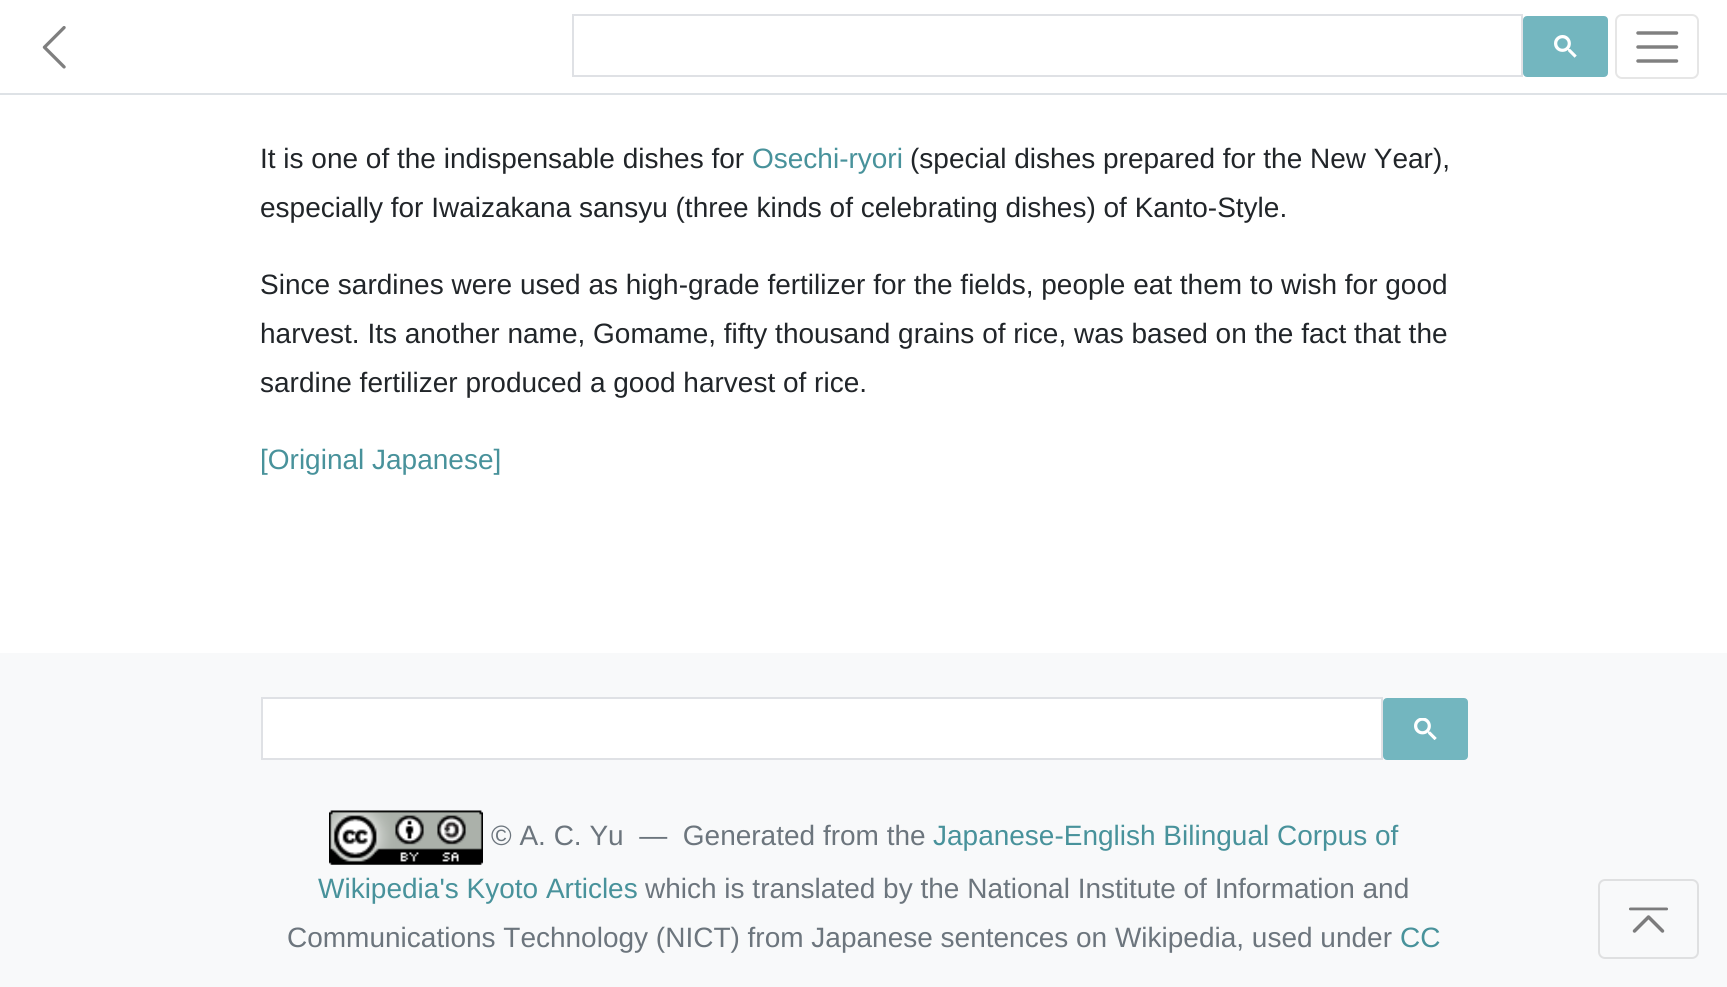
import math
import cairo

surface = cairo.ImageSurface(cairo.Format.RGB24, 1727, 987)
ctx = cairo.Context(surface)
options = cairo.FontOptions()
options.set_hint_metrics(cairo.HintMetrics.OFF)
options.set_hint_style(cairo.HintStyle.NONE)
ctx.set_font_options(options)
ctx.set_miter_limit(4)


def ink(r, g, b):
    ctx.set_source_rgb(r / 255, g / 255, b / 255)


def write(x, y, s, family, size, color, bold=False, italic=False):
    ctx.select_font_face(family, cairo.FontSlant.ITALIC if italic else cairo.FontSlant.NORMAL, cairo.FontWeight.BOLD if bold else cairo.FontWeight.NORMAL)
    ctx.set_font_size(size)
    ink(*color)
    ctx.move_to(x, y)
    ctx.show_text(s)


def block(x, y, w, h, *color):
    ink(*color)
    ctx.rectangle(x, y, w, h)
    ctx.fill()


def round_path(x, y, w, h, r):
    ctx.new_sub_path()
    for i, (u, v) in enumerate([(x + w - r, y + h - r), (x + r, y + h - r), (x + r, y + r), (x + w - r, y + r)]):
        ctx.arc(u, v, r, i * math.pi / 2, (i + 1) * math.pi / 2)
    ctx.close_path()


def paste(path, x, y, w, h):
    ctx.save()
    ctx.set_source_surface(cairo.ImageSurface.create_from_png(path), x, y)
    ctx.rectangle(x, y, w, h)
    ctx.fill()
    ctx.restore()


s1 = dict(family="Liberation Sans", size=28, color=(33, 37, 41))
s2 = dict(family="Liberation Sans", size=28, color=(72, 146, 155))
s3 = dict(family="Liberation Sans", size=28, color=(108, 117, 125))

ink(255, 255, 255)
ctx.paint()
block(0, 93, 1727, 2, 222, 226, 230)
paste("pic1.png", 42, 26, 24, 43)
ctx.rectangle(573, 15, 949, 61)
ink(223, 225, 229)
ctx.stroke()
ink(115, 182, 191)
round_path(1524, 17, 83, 59, 3)
ctx.fill_preserve()
ctx.stroke()
paste("pic2.png", 1554, 35, 23, 23)
round_path(1616, 15, 82, 63, 6)
ink(230, 230, 230)
ctx.stroke()
ctx.new_path()
ctx.move_to(1638, 33)
ctx.line_to(1676.5, 33)
ctx.move_to(1638, 47)
ctx.line_to(1676.5, 47)
ctx.move_to(1638, 61)
ctx.line_to(1676.5, 61)
ink(128, 128, 128)
ctx.set_line_width(3.5)
ctx.set_line_cap(cairo.LineCap.ROUND)
ctx.stroke()
write(260, 168, "It is one of the indispensable dishes for", **s1)
write(752, 168, "Osechi-ryori", **s2)
write(910, 168, "(special dishes prepared for the New Year),", **s1)
write(260, 217, "especially for Iwaizakana sansyu (three kinds of celebrating dishes) of Kanto-Style.", **s1)
write(260, 294, "Since sardines were used as high-grade fertilizer for the fields, people eat them to wish for good", **s1)
write(260, 343, "harvest. Its another name, Gomame, fifty thousand grains of rice, was based on the fact that the", **s1)
write(260, 392, "sardine fertilizer produced a good harvest of rice.", **s1)
write(260, 469, "[Original Japanese]", **s2)
block(0, 653, 1727, 334, 248, 249, 250)
ink(255, 255, 255)
ctx.rectangle(262, 698, 1120, 61)
ctx.fill_preserve()
ink(223, 225, 229)
ctx.set_line_width(2)
ctx.set_line_cap(cairo.LineCap.BUTT)
ctx.stroke()
ink(115, 182, 191)
round_path(1384, 699, 83, 60, 3)
ctx.fill_preserve()
ctx.stroke()
paste("pic3.png", 1414, 718, 23, 22)
paste("pic4.png", 329, 810, 154, 55)
write(491, 845, "© A. C. Yu  —  Generated from the", **s3)
write(933, 845, "Japanese-English Bilingual Corpus of", **s2)
write(318, 898, "Wikipedia's Kyoto Articles", **s2)
write(645, 898, "which is translated by the National Institute of Information and", **s3)
write(287, 947, "Communications Technology (NICT) from Japanese sentences on Wikipedia, used under", **s3)
write(1400, 947, "CC", **s2)
round_path(1599, 880, 99, 78, 6)
ink(223, 224, 225)
ctx.stroke()
paste("pic5.png", 1629, 907, 39, 26)
surface.write_to_png("screenshot.png")
